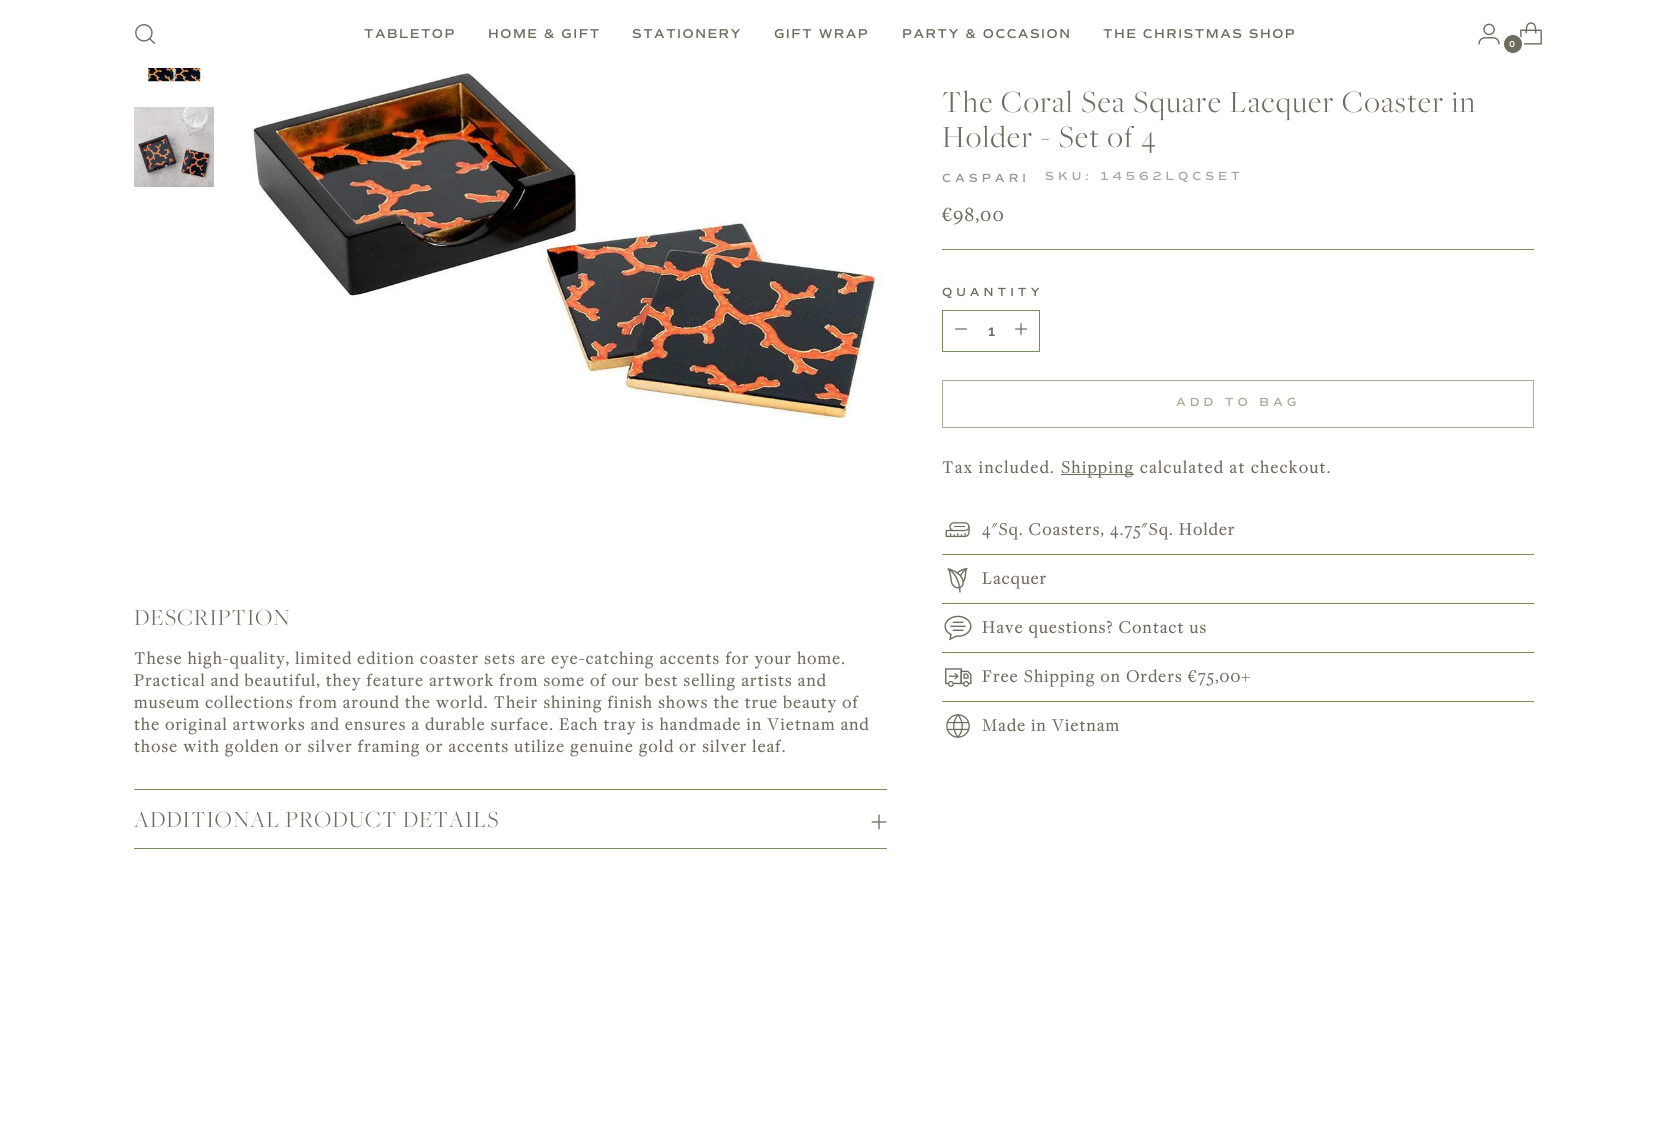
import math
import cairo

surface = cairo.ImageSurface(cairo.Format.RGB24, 1668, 1124)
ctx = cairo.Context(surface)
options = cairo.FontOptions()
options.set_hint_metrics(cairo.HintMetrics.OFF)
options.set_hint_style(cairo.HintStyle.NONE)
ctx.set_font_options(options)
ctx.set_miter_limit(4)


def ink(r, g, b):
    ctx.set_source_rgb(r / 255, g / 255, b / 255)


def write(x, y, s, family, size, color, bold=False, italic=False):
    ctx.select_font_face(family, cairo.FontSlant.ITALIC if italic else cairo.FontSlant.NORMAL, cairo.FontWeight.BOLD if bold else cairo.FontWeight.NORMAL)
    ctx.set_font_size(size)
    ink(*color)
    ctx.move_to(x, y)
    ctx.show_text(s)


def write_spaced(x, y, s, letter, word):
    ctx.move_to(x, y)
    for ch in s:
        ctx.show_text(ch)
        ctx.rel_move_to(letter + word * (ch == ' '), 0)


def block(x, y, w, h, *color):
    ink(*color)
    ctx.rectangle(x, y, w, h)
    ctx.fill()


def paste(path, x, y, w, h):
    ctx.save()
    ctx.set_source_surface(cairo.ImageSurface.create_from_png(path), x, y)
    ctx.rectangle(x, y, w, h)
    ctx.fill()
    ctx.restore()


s1 = dict(family="Raleway SemiBold", size=15, color=(112, 107, 95))

ink(255, 255, 255)
ctx.paint()
paste("pic1.png", 135, 24, 21, 21)
ctx.select_font_face("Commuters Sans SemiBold")
ctx.set_font_size(13)
ink(112, 107, 95)
write_spaced(364, 38, "TABLETOP", 1.5, 0)
write_spaced(488, 38, "HOME & GIFT", 1.5, 0)
write_spaced(632, 38, "STATIONERY", 1.5, 0)
write_spaced(774, 38, "GIFT WRAP", 1.5, 0)
write_spaced(902, 38, "PARTY & OCCASION", 1.5, 0)
write_spaced(1103, 38, "THE CHRISTMAS SHOP", 1.5, 0)
paste("pic2.png", 1478, 23, 22, 22)
paste("pic3.png", 1520, 22, 22, 23)
ctx.arc(1513.5, 44.5, 9.5, 0, 2 * math.pi)
ink(255, 255, 255)
ctx.stroke()
ink(112, 107, 95)
ctx.arc(1513, 44, 9, 0, 2 * math.pi)
ctx.fill()
ctx.select_font_face("Raleway SemiBold")
ctx.set_font_size(10)
ink(255, 255, 255)
write_spaced(1509, 47, "0", 1.5, 0)
paste("pic4.png", 147, 68, 54, 14)
paste("pic5.png", 134, 107, 80, 80)
paste("pic6.png", 252, 73, 630, 346)
ctx.select_font_face("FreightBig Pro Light")
ctx.set_font_size(24)
ink(112, 107, 95)
write_spaced(134, 625, "DESCRIPTION", 1, 0)
ctx.select_font_face("FreightBig Pro", cairo.FontSlant.NORMAL, cairo.FontWeight.BOLD)
ctx.set_font_size(18)
write_spaced(134, 664, "These high-quality, limited edition coaster sets are eye-catching accents for your home.", 1.75, 0)
write_spaced(134, 686, "Practical and beautiful, they feature artwork from some of our best selling artists and", 1.75, 0)
write_spaced(134, 708, "museum collections from around the world. Their shining finish shows the true beauty of", 1.75, 0)
write_spaced(134, 730, "the original artworks and ensures a durable surface. Each tray is handmade in Vietnam and", 1.75, 0)
write_spaced(134, 752, "those with golden or silver framing or accents utilize genuine gold or silver leaf.", 1.75, 0)
block(134, 789, 753, 1, 121, 140, 94)
block(134, 848, 753, 1, 121, 140, 94)
ctx.select_font_face("FreightBig Pro Light")
ctx.set_font_size(24)
ink(112, 107, 95)
write_spaced(134, 827, "ADDITIONAL PRODUCT DETAILS", 1, 0)
paste("pic7.png", 871, 814, 16, 16)
block(942, 249, 592, 1, 121, 140, 94)
ctx.set_font_size(32)
ink(112, 107, 95)
write_spaced(942, 112, "The Coral Sea Square Lacquer Coaster in", 1.5, 0)
write_spaced(942, 147, "Holder - Set of 4", 1.5, 0)
ctx.select_font_face("Commuters Sans SemiBold")
ctx.set_font_size(12)
ink(155, 151, 143)
write_spaced(942, 182, "CASPARI", 4, 0)
ink(169, 166, 159)
write_spaced(1045, 180, "SKU: 14562LQCSET", 4, 0)
ctx.select_font_face("FreightBig Pro", cairo.FontSlant.NORMAL, cairo.FontWeight.BOLD)
ctx.set_font_size(20)
ink(112, 107, 95)
write_spaced(942, 221, "€98,00", 2, 0)
ctx.select_font_face("Commuters Sans SemiBold")
ctx.set_font_size(12)
write_spaced(942, 296, "QUANTITY", 4, 0)
ctx.rectangle(942.5, 310.5, 97, 41)
ink(121, 140, 94)
ctx.set_line_width(1)
ctx.stroke()
paste("pic8.png", 955, 328, 12, 2)
write(988, 336, "1", **s1)
paste("pic9.png", 1015, 323, 12, 12)
ctx.rectangle(942.5, 380.5, 591, 47)
ink(164, 175, 148)
ctx.stroke()
ctx.select_font_face("Commuters Sans SemiBold")
ctx.set_font_size(12)
write_spaced(1176, 406, "ADD TO BAG", 4, 0)
ctx.select_font_face("FreightBig Pro", cairo.FontSlant.NORMAL, cairo.FontWeight.BOLD)
ctx.set_font_size(18)
ink(112, 107, 95)
write_spaced(942, 473, "Tax included.", 2, 0)
block(1061, 474, 73, 1, 112, 107, 95)
write_spaced(1061, 473, "Shipping calculated at checkout.", 2, 0)
paste("pic10.png", 945, 522, 25, 16)
write_spaced(982, 535, "4\"Sq. Coasters, 4.75\"Sq. Holder", 1.75, 0)
block(942, 554, 592, 1, 121, 140, 94)
paste("pic11.png", 947, 567, 21, 26)
ink(112, 107, 95)
write_spaced(982, 584, "Lacquer", 1.75, 0)
block(942, 603, 592, 1, 121, 140, 94)
paste("pic12.png", 944, 615, 28, 26)
ink(112, 107, 95)
write_spaced(982, 633, "Have questions? Contact us", 1.75, 0)
block(942, 652, 592, 1, 121, 140, 94)
paste("pic13.png", 945, 668, 27, 19)
ink(112, 107, 95)
write_spaced(982, 682, "Free Shipping on Orders €75,00+", 1.75, 0)
block(942, 701, 592, 1, 121, 140, 94)
paste("pic14.png", 946, 714, 24, 24)
ink(112, 107, 95)
write_spaced(982, 731, "Made in Vietnam", 1.75, 0)
surface.write_to_png("screenshot.png")
